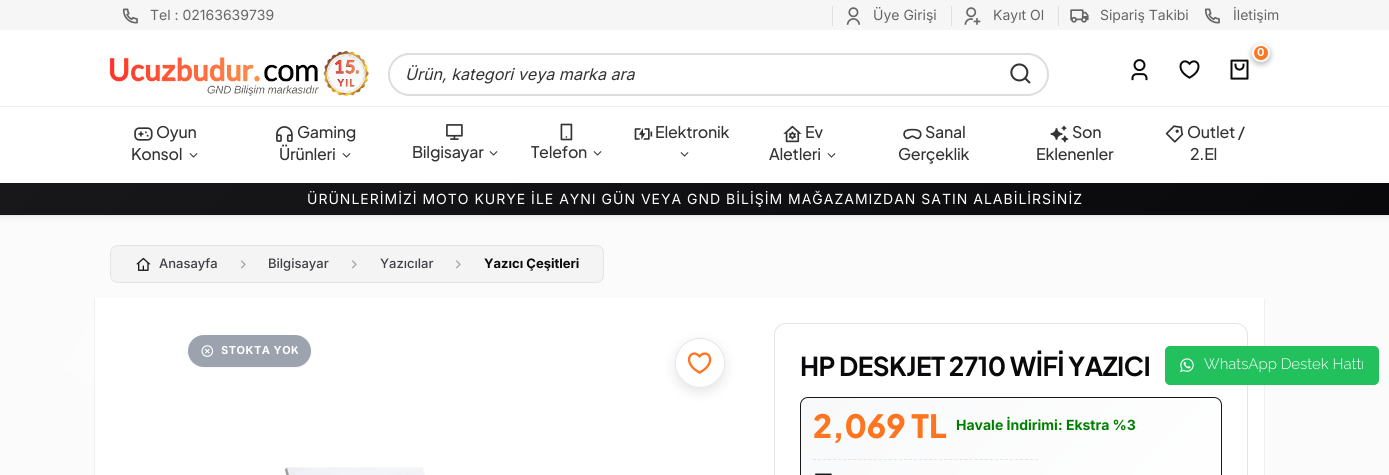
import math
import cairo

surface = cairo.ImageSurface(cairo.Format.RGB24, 1389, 475)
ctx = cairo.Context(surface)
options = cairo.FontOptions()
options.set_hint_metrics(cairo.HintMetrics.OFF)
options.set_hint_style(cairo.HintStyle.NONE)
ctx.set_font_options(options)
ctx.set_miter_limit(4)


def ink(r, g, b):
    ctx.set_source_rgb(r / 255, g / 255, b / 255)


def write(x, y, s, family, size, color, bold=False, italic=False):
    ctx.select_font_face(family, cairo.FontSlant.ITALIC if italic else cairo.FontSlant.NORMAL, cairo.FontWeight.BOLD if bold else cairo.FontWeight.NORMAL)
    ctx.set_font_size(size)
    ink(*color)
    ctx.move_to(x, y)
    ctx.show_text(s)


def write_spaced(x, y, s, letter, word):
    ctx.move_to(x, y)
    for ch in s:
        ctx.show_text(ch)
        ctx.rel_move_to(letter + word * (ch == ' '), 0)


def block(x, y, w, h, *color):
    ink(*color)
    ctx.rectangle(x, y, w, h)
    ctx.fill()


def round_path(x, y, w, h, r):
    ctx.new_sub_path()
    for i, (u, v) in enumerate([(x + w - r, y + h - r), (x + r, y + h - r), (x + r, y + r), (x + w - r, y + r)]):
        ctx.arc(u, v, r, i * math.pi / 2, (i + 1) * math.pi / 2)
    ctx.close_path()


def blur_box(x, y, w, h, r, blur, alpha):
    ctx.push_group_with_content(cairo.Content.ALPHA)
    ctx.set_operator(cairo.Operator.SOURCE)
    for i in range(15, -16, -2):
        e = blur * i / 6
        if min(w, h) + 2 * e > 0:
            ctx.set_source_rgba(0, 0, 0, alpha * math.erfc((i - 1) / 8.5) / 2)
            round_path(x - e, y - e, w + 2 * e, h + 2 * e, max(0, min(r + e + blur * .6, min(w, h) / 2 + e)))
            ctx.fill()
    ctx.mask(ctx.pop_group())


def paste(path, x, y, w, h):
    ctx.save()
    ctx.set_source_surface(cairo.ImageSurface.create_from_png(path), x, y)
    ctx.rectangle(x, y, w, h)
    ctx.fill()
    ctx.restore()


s1 = dict(family="Inter", size=14, color=(102, 102, 102))
s2 = dict(family="Inter", size=16.1, color=(51, 51, 51), italic=True)
s3 = dict(family="Inter", size=11, color=(255, 255, 255), bold=True)
s4 = dict(family="Inter Medium", size=13, color=(63, 63, 70))
s5 = dict(family="Inter", size=13, color=(9, 9, 11), bold=True)
s6 = dict(family="Plus Jakarta Sans ExtraBold", size=32, color=(255, 117, 31))
s7 = dict(family="Inter", size=14, color=(0, 128, 0), bold=True)
s8 = dict(family="Raleway Light", size=15, color=(255, 255, 255))

ink(251, 251, 251)
ctx.paint()
ink(0, 0, 0)
blur_box(0, 2, 1389, 215, 0, 4, 0.06)
block(0, 30, 1389, 153, 255, 255, 255)
block(0, 2, 1389, 28, 246, 246, 246)
paste("pic1.png", 122, 8, 16, 16)
write(150, 20, "Tel : 02163639739", **s1)
paste("pic2.png", 846, 7, 14, 18)
write(873, 20, "Üye Girişi", **s1)
block(832, 6, 1, 20, 224, 224, 224)
paste("pic3.png", 964, 7, 17, 18)
write(993, 20, "Kayıt Ol", **s1)
block(951, 6, 1, 20, 224, 224, 224)
paste("pic4.png", 1070, 9, 19, 14)
write(1100, 20, "Sipariş Takibi", **s1)
block(1058, 6, 1, 20, 224, 224, 224)
paste("pic1.png", 1204, 8, 16, 16)
write(1233, 20, "İletişim", **s1)
paste("pic5.png", 109, 51, 260, 45)
round_path(389, 54, 659, 41, 20.5)
ink(221, 221, 221)
ctx.stroke()
write(405, 80, "Ürün, kategori veya marka ara", **s2)
paste("pic6.png", 1010, 63, 21, 21)
paste("pic7.png", 1230, 59, 19, 21)
ink(0, 0, 0)
blur_box(1252, 46, 18, 18, 9, 3, 0.3)
ink(255, 117, 31)
ctx.arc(1261, 53, 8, 0, 2 * math.pi)
ctx.fill_preserve()
ink(255, 255, 255)
ctx.stroke()
write(1257, 56, "0", **s3)
paste("pic8.png", 1131, 59, 17, 22)
paste("pic9.png", 1179, 60, 21, 19)
block(0, 106, 1389, 1, 238, 238, 238)
paste("pic10.png", 134, 127, 19, 14)
ctx.select_font_face("Plus Jakarta Sans Medium")
ctx.set_font_size(16)
ink(51, 51, 51)
write_spaced(156, 138, "Oyun", -0.25, 0)
write_spaced(131, 160, "Konsol", -0.25, 0)
paste("pic11.png", 189, 153, 9, 5)
paste("pic12.png", 276, 126, 17, 16)
write_spaced(297, 138, "Gaming", -0.25, 0)
write_spaced(279, 160, "Ürünleri", -0.25, 0)
paste("pic11.png", 342, 153, 9, 5)
paste("pic13.png", 446, 124, 17, 16)
write_spaced(412, 158, "Bilgisayar", -0.25, 0)
paste("pic11.png", 489, 151, 9, 5)
paste("pic14.png", 560, 123, 13, 18)
write_spaced(531, 158, "Telefon", -0.25, 0)
paste("pic11.png", 593, 151, 9, 5)
paste("pic15.png", 634, 128, 19, 12)
write_spaced(655, 138, "Elektronik", -0.25, 0)
paste("pic11.png", 680, 152, 9, 5)
paste("pic16.png", 783, 125, 19, 18)
write_spaced(805, 138, "Ev", -0.25, 0)
write_spaced(769, 160, "Aletleri", -0.25, 0)
paste("pic11.png", 827, 153, 9, 5)
paste("pic17.png", 903, 128, 19, 12)
write_spaced(925, 138, "Sanal", -0.25, 0)
write_spaced(898, 160, "Gerçeklik", -0.25, 0)
paste("pic18.png", 1050, 125, 19, 18)
write_spaced(1072, 138, "Son", -0.25, 0)
write_spaced(1036, 160, "Eklenenler", -0.25, 0)
paste("pic19.png", 1165, 125, 19, 18)
write_spaced(1187, 138, "Outlet /", -0.25, 0)
write_spaced(1190, 160, "2.El", -0.25, 0)
ink(0, 0, 0)
blur_box(0, 184, 1389, 32, 0, 1, 0.05)
gradient = cairo.LinearGradient(339, -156, 1050, 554)
gradient.add_color_stop_rgba(0, 0.094, 0.094, 0.106, 1)
gradient.add_color_stop_rgba(1, 0.035, 0.035, 0.043, 1)
ctx.set_source(gradient)
ctx.rectangle(0, 183, 1389, 32)
ctx.fill()
ctx.select_font_face("Inter")
ctx.set_font_size(14)
ink(255, 255, 255)
write_spaced(307, 204, "ÜRÜNLERİMİZİ MOTO KURYE İLE AYNI GÜN VEYA GND BİLİŞİM MAĞAZAMIZDAN SATIN ALABİLİRSİNİZ", 1, 0)
ink(244, 244, 245)
round_path(110.5, 245.5, 493, 37, 7.5)
ctx.fill_preserve()
ink(228, 228, 231)
ctx.set_line_width(1)
ctx.stroke()
paste("pic20.png", 136, 257, 15, 14)
write(159, 268, "Anasayfa", **s4)
paste("pic21.png", 240, 260, 6, 9)
write(268, 268, "Bilgisayar", **s4)
paste("pic21.png", 351, 260, 6, 9)
write(380, 268, "Yazıcılar", **s4)
paste("pic21.png", 455, 260, 6, 9)
write(484, 268, "Yazıcı Çeşitleri", **s5)
ink(0, 0, 0)
blur_box(95, 299, 1169, 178, 0, 0.5, 0.2)
block(95, 298, 1169, 177, 255, 255, 255)
ink(0, 0, 0)
blur_box(188, 336, 123, 32, 16, 1, 0.05)
ink(156, 163, 175)
round_path(188, 335, 123, 32, 16)
ctx.fill()
gradient = cairo.LinearGradient(68, 335, 122, 366)
gradient.add_color_stop_rgba(0, 1, 1, 1, 0)
gradient.add_color_stop_rgba(0.5, 1, 1, 1, 0.3)
gradient.add_color_stop_rgba(1, 1, 1, 1, 0)
ctx.set_source(gradient)
ctx.new_path()
ctx.move_to(84, 308)
ctx.line_to(138, 338)
ctx.line_to(106, 394)
ctx.line_to(52, 363)
ctx.close_path()
ctx.fill()
paste("pic22.png", 201, 345, 13, 12)
ctx.save()
round_path(221, 345, 78, 11, 5.5)
ctx.clip()
ctx.set_font_size(11)
ink(255, 255, 255)
write_spaced(221, 354, "STOKTA YOK", 0.5, 0)
ctx.restore()
ctx.save()
ctx.set_fill_rule(cairo.FillRule.EVEN_ODD)
ctx.new_path()
ctx.move_to(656, 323)
ctx.line_to(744, 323)
ctx.line_to(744, 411)
ctx.line_to(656, 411)
ctx.close_path()
ctx.move_to(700, 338)
ctx.curve_to(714, 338, 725, 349, 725, 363)
ctx.curve_to(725, 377, 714, 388, 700, 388)
ctx.curve_to(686, 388, 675, 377, 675, 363)
ctx.curve_to(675, 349, 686, 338, 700, 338)
ctx.close_path()
ctx.clip()
ink(0, 0, 0)
blur_box(675, 342, 50, 50, 25, 6, 0.1)
ctx.restore()
ctx.set_source_rgba(1, 1, 1, 0.95)
ctx.arc(700, 363, 24.5, 0, 2 * math.pi)
ctx.fill_preserve()
ink(228, 228, 231)
ctx.stroke()
paste("pic23.png", 687, 352, 25, 22)
paste("pic24.png", 284, 467, 141, 8)
round_path(774.5, 323.5, 473, 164, 11.5)
ctx.stroke()
ctx.select_font_face("Plus Jakarta Sans", cairo.FontSlant.NORMAL, cairo.FontWeight.BOLD)
ctx.set_font_size(26)
ink(9, 9, 11)
write_spaced(800, 376, "HP DESKJET 2710 WİFİ YAZICI", -0.5, 0)
ctx.save()
round_path(800, 397, 422, 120, 8)
ctx.clip()
gradient = cairo.LinearGradient(877, 323, 1146, 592)
gradient.add_color_stop_rgba(0, 0.973, 0.976, 0.98, 1)
gradient.add_color_stop_rgba(1, 1, 1, 1, 1)
ctx.set_source(gradient)
ctx.rectangle(801, 398, 420, 77)
ctx.fill()
ctx.restore()
round_path(800.5, 397.5, 421, 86, 7.5)
ink(24, 24, 27)
ctx.stroke()
write(813, 438, "2,069 TL", **s6)
write(956, 430, "Havale İndirimi: Ekstra %3", **s7)
ctx.new_path()
ctx.move_to(813, 459.5)
ctx.line_to(1038, 459.5)
ink(228, 228, 231)
ctx.set_dash([3, 2.05])
ctx.stroke()
paste("pic25.png", 815, 473, 17, 2)
ink(34, 193, 94)
round_path(1165, 346, 214, 39, 5)
ctx.fill()
paste("pic26.png", 1180, 358, 14, 15)
write(1204, 369, "WhatsApp Destek Hattı", **s8)
surface.write_to_png("screenshot.png")
